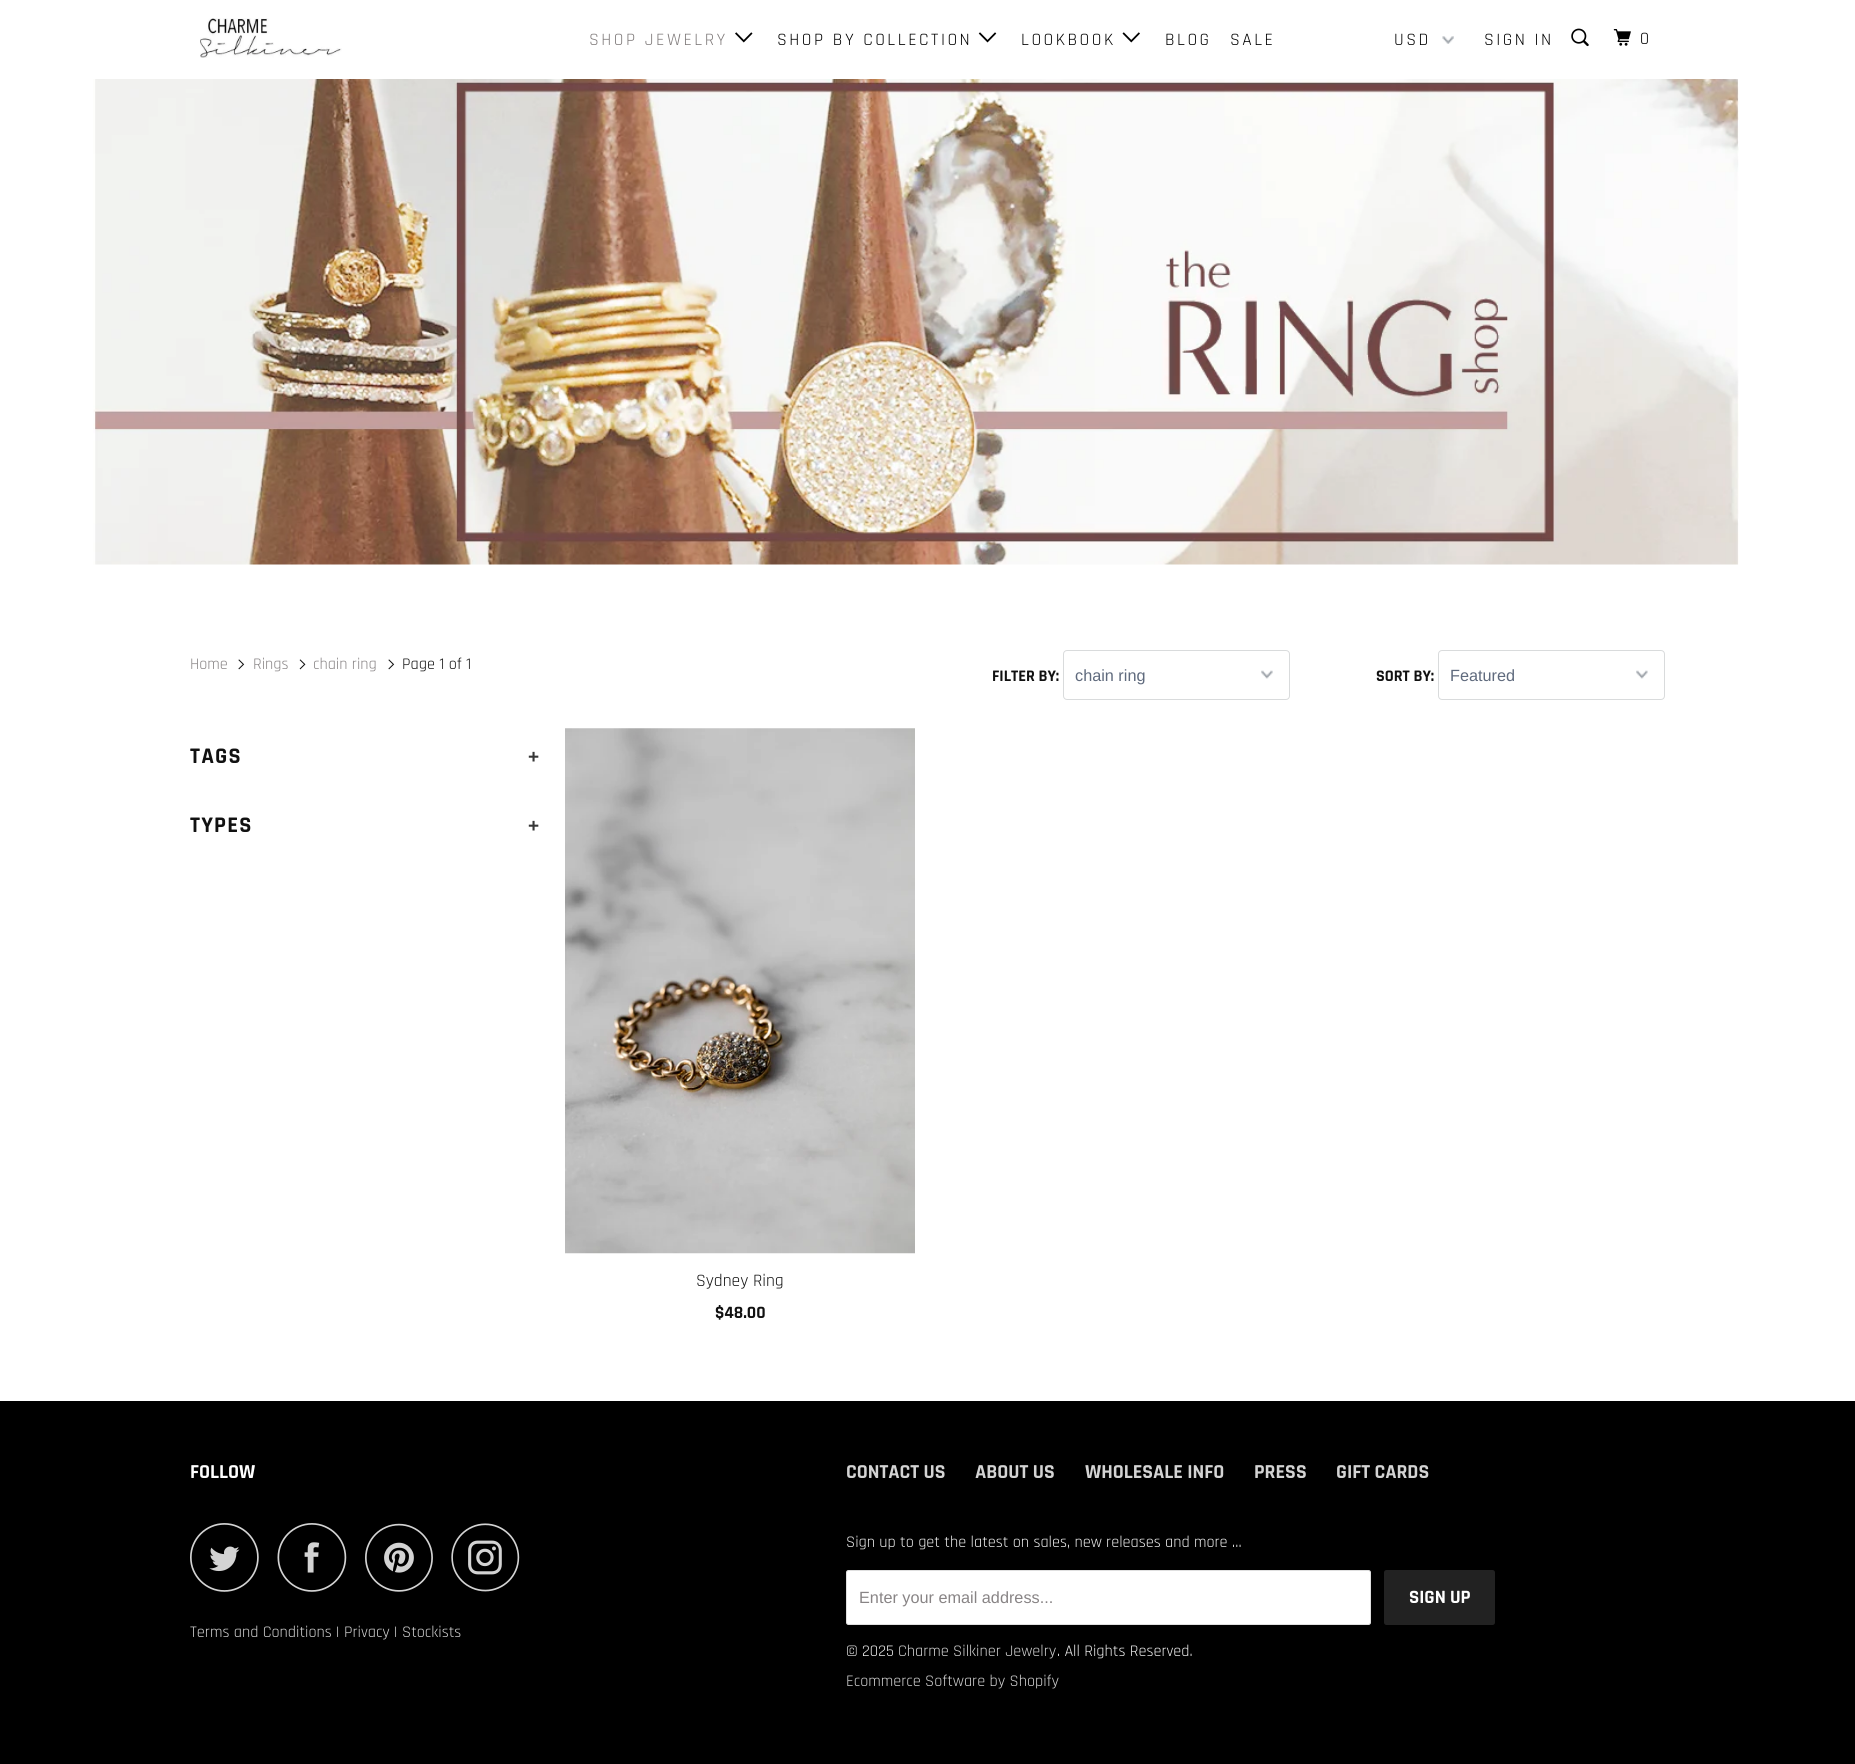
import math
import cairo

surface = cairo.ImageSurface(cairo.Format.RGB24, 1855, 1764)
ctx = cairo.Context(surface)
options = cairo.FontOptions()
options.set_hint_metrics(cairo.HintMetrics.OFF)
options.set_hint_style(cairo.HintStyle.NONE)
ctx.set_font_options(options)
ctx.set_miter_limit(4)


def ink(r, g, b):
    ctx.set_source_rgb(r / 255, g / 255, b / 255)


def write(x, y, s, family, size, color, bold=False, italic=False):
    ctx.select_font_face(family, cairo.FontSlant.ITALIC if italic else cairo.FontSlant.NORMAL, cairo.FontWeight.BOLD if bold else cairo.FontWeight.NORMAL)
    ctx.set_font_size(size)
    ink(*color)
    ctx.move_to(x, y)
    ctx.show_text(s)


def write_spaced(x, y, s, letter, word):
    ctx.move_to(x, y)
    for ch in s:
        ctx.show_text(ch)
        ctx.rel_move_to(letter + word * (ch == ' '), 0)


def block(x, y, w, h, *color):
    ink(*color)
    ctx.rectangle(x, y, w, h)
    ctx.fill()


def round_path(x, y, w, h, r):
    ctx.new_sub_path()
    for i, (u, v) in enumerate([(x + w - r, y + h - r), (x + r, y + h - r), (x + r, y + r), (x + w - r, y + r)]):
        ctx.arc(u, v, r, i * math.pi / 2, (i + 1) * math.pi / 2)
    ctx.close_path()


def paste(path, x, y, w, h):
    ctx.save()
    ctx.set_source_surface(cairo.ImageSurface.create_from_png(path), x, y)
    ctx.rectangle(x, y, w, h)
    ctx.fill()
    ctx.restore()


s1 = dict(family="Rajdhani", size=16.25, color=(136, 132, 133))
s2 = dict(family="Rajdhani", size=16.25, color=(17, 17, 17))
s3 = dict(family="Rajdhani", size=16.25, color=(17, 17, 17), bold=True)
s4 = dict(family="Liberation Sans", size=16.25, color=(95, 106, 125))
s5 = dict(family="Rajdhani", size=17.5, color=(17, 17, 17))
s6 = dict(family="Rajdhani", size=17.5, color=(17, 17, 17), bold=True)
s7 = dict(family="Rajdhani", size=20, color=(255, 255, 255), bold=True)
s8 = dict(family="Rajdhani", size=16.25, color=(211, 211, 211))
s9 = dict(family="Rajdhani", size=16.25, color=(239, 239, 239))
s10 = dict(family="Rajdhani", size=20, color=(211, 211, 211), bold=True)
s11 = dict(family="Liberation Sans", size=16.25, color=(136, 132, 133))
s12 = dict(family="Rajdhani", size=19, color=(255, 255, 255), bold=True)

ink(255, 255, 255)
ctx.paint()
paste("pic1.png", 200, 18, 142, 40)
ctx.select_font_face("Rajdhani")
ctx.set_font_size(17.5)
ink(128, 123, 123)
write_spaced(589, 45, "SHOP JEWELRY", 2.5, 0)
paste("pic2.png", 735, 32, 18, 11)
ink(0, 0, 0)
write_spaced(777, 45, "SHOP BY COLLECTION", 2.5, 0)
paste("pic3.png", 978, 32, 19, 11)
write_spaced(1021, 45, "LOOKBOOK", 2.5, 0)
paste("pic4.png", 1122, 32, 18, 11)
write_spaced(1165, 45, "BLOG", 2.5, 0)
write_spaced(1230, 45, "SALE", 2.5, 0)
paste("pic5.png", 1442, 36, 12, 8)
write_spaced(1394, 45, "USD", 2.5, 0)
write_spaced(1484, 45, "SIGN IN", 2.5, 0)
paste("pic6.png", 1571, 28, 18, 19)
paste("pic7.png", 1613, 29, 18, 17)
write_spaced(1640, 44, "0", 2.5, 0)
paste("pic8.png", 93, 79, 1646, 486)
write(190, 669, "Home", **s1)
paste("pic9.png", 238, 659, 7, 11)
write(253, 669, "Rings", **s1)
paste("pic10.png", 299, 659, 7, 11)
write(313, 669, "chain ring", **s1)
paste("pic9.png", 388, 659, 7, 11)
write(402, 669, "Page 1 of 1", **s2)
write(992, 681, "FILTER BY:", **s3)
paste("pic11.png", 1261, 670, 12, 9)
round_path(1063.5, 650.5, 226, 49, 3.5)
ink(217, 219, 220)
ctx.set_line_width(1)
ctx.stroke()
write(1075, 681, "chain ring", **s4)
write(1376, 681, "SORT BY:", **s3)
paste("pic12.png", 1636, 670, 12, 9)
round_path(1438.5, 650.5, 226, 49, 3.5)
ink(217, 219, 220)
ctx.stroke()
write(1450, 681, "Featured", **s4)
ctx.select_font_face("Rajdhani", cairo.FontSlant.NORMAL, cairo.FontWeight.BOLD)
ctx.set_font_size(22.5)
ink(17, 17, 17)
write_spaced(190, 763, "TAGS", 1.25, 0)
ctx.select_font_face("Liberation Sans", cairo.FontSlant.NORMAL, cairo.FontWeight.BOLD)
ctx.set_font_size(19)
ink(54, 54, 54)
write_spaced(528, 763, "+", 1.25, 0)
ctx.select_font_face("Rajdhani", cairo.FontSlant.NORMAL, cairo.FontWeight.BOLD)
ctx.set_font_size(22.5)
ink(17, 17, 17)
write_spaced(190, 832, "TYPES", 1.25, 0)
ctx.select_font_face("Liberation Sans", cairo.FontSlant.NORMAL, cairo.FontWeight.BOLD)
ctx.set_font_size(19)
ink(54, 54, 54)
write_spaced(528, 832, "+", 1.25, 0)
paste("pic13.png", 565, 728, 350, 526)
write(696, 1286, "Sydney Ring", **s5)
write(715, 1318, "$48.00", **s6)
block(0, 1401, 1855, 363, 0, 0, 0)
write(190, 1478, "FOLLOW", **s7)
paste("pic14.png", 190, 1523, 69, 69)
paste("pic15.png", 277, 1523, 70, 69)
paste("pic16.png", 365, 1523, 68, 69)
paste("pic17.png", 451, 1523, 69, 69)
write(190, 1637, "Terms and Conditions", **s8)
write(336, 1637, "|", **s9)
write(344, 1637, "Privacy", **s8)
write(394, 1637, "|", **s9)
write(402, 1637, "Stockists", **s8)
write(846, 1478, "CONTACT US", **s10)
write(975, 1478, "ABOUT US", **s10)
write(1085, 1478, "WHOLESALE INFO", **s10)
write(1254, 1478, "PRESS", **s10)
write(1336, 1478, "GIFT CARDS", **s10)
write(846, 1547, "Sign up to get the latest on sales, new releases and more …", **s9)
ink(255, 255, 255)
round_path(846.5, 1570.5, 524, 54, 2)
ctx.fill_preserve()
ink(223, 223, 223)
ctx.stroke()
write(859, 1603, "Enter your email address...", **s11)
ink(34, 34, 34)
round_path(1384, 1570, 111, 55, 2.5)
ctx.fill()
write(1409, 1603, "SIGN UP", **s12)
write(846, 1656, "© 2025", **s9)
write(898, 1656, "Charme Silkiner Jewelry", **s8)
write(1057, 1656, ". All Rights Reserved.", **s9)
write(846, 1686, "Ecommerce Software by Shopify", **s8)
surface.write_to_png("screenshot.png")
